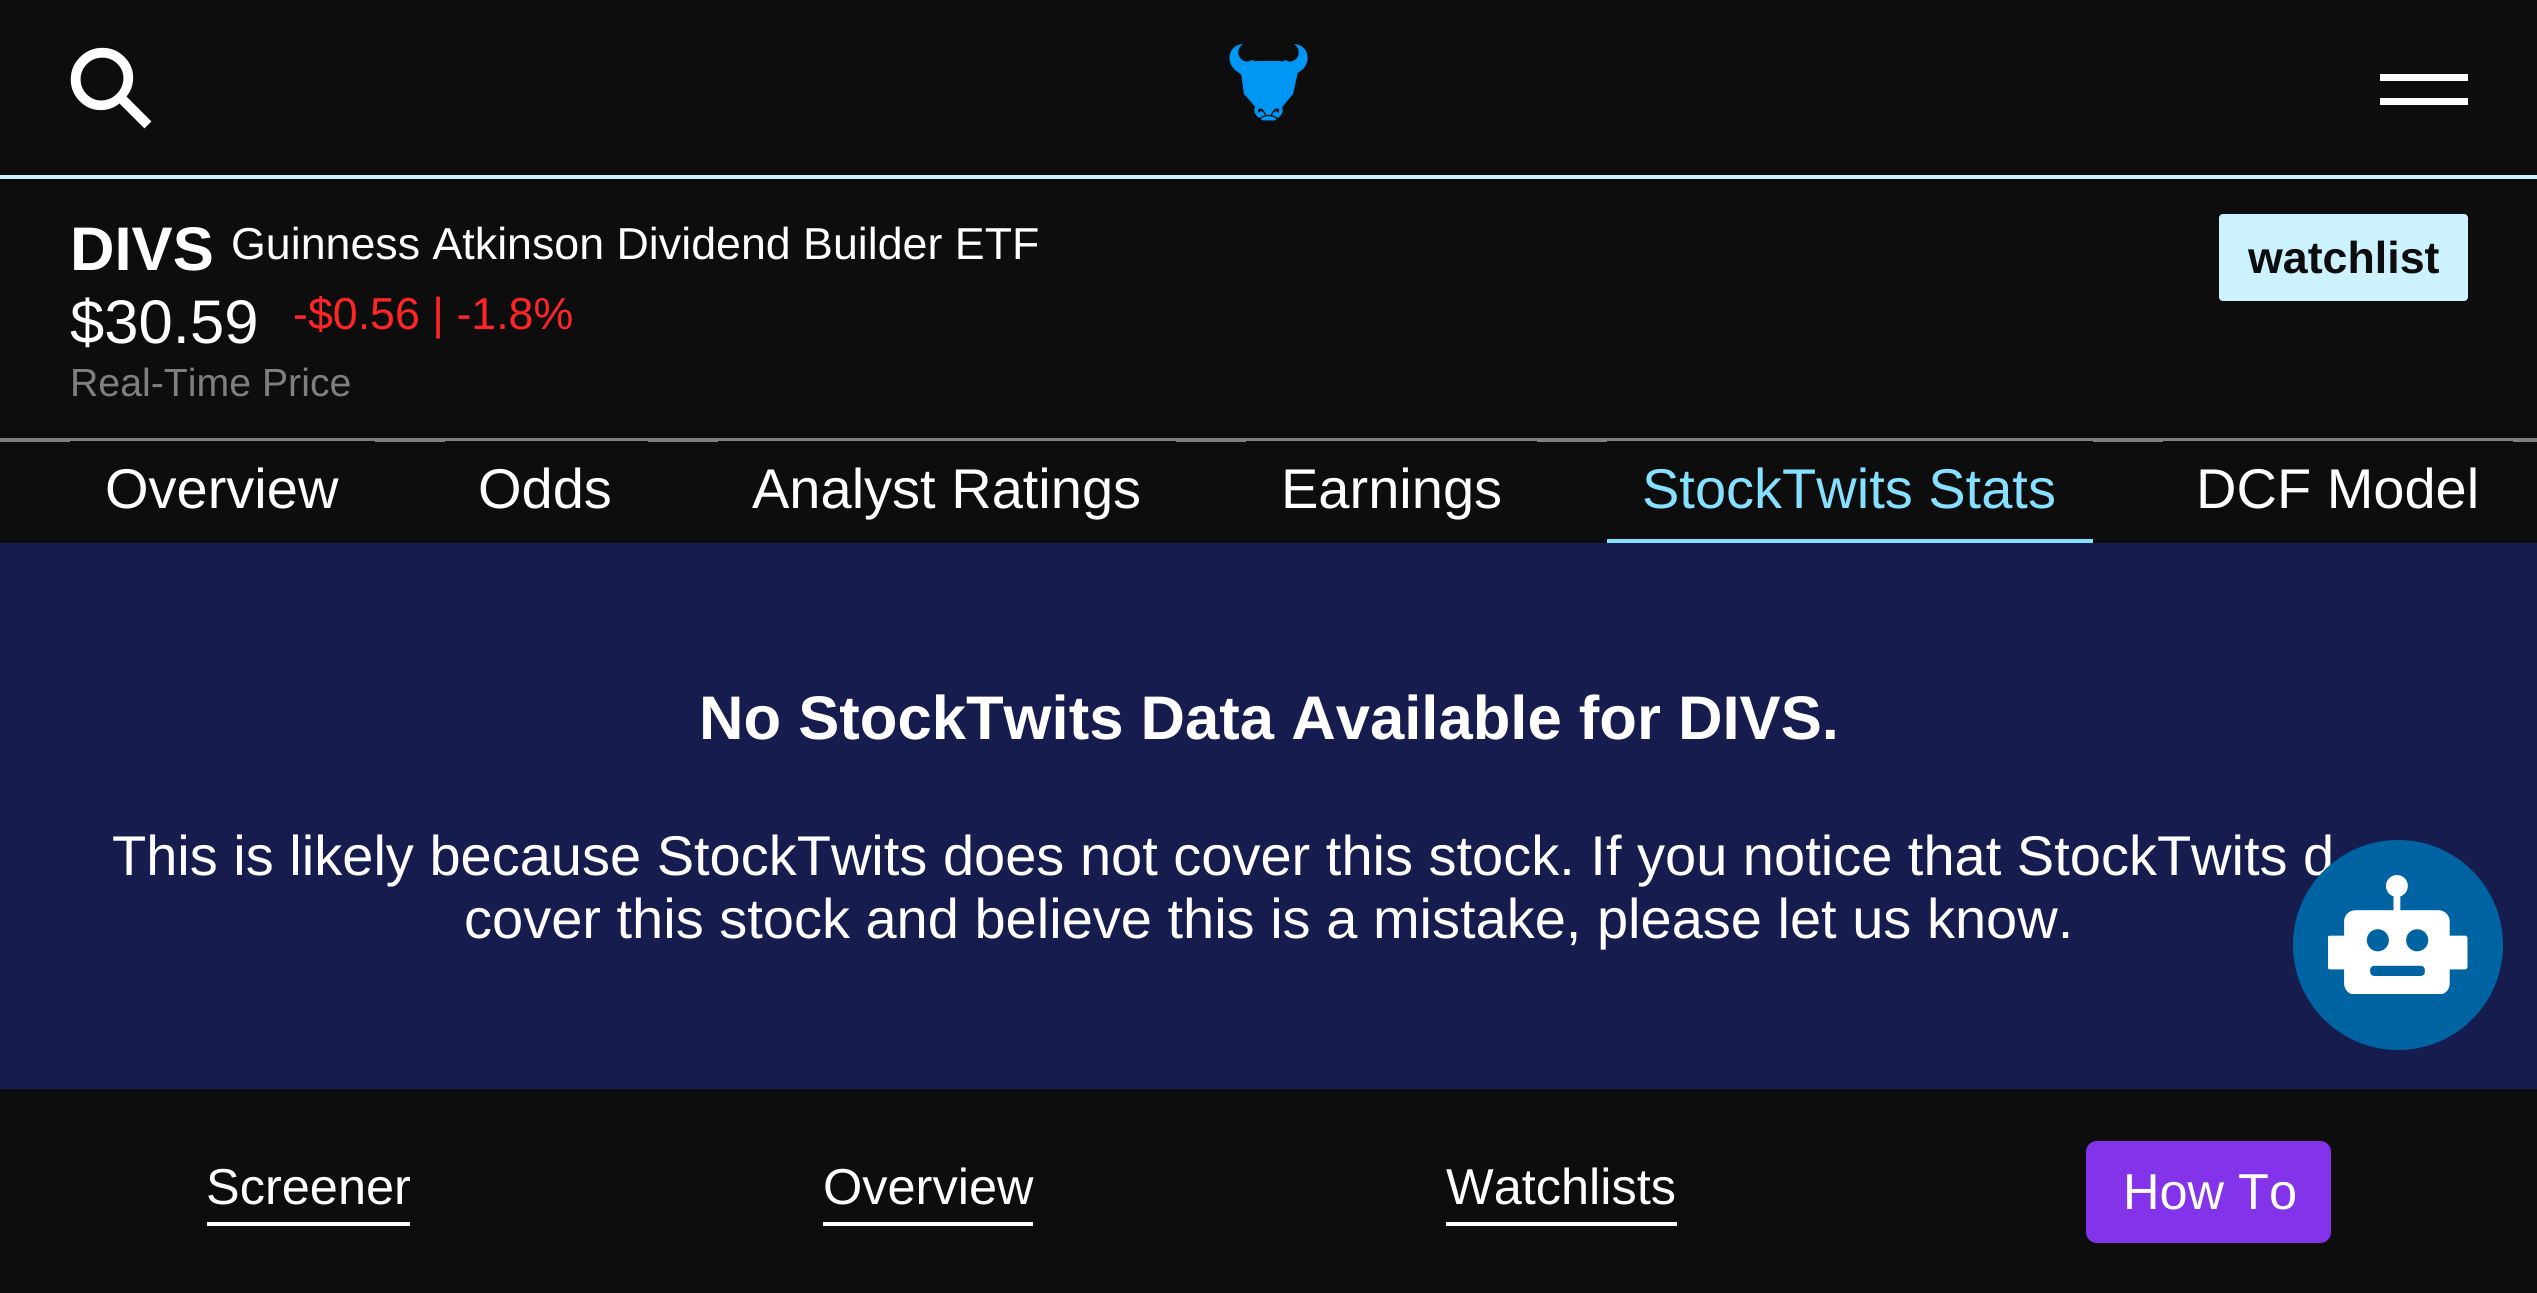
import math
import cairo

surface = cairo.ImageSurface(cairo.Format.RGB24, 2537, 1293)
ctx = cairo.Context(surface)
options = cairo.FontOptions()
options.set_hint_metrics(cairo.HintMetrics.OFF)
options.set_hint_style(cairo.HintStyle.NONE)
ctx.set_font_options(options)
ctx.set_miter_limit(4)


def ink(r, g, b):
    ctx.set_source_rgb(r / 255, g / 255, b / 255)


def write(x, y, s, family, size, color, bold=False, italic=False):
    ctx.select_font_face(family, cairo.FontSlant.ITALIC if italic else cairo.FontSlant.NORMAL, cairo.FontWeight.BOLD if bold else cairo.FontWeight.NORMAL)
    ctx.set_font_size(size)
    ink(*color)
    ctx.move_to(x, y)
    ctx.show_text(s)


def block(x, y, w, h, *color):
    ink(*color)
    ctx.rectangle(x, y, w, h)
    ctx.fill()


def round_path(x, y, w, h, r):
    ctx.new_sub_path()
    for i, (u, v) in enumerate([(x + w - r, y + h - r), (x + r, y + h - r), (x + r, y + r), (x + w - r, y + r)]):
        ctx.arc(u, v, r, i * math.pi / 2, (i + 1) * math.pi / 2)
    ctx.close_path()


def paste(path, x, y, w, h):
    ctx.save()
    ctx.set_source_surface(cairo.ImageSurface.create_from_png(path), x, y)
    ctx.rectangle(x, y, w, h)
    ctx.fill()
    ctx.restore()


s1 = dict(family="DejaVu Sans", size=112, color=(255, 255, 255))
s2 = dict(family="Liberation Sans", size=61.6, color=(255, 255, 255), bold=True)
s3 = dict(family="Liberation Sans", size=44.75, color=(255, 255, 255))
s4 = dict(family="Liberation Sans", size=44.75, color=(13, 13, 13), bold=True)
s5 = dict(family="Liberation Sans", size=61.6, color=(255, 255, 255))
s6 = dict(family="Liberation Sans", size=44.75, color=(255, 37, 37))
s7 = dict(family="Liberation Sans", size=39.25, color=(127, 127, 127))
s8 = dict(family="Liberation Sans", size=56, color=(255, 255, 255))
s9 = dict(family="Liberation Sans", size=56, color=(134, 224, 255))
s10 = dict(family="Liberation Sans", size=50.5, color=(255, 255, 255))

ink(23, 28, 79)
ctx.paint()
block(0, 0, 2537, 175, 13, 13, 13)
block(0, 175, 2537, 4, 205, 242, 255)
ctx.save()
ctx.translate(109, 144)
ctx.rotate(-45 * math.pi / 180)
write(0, 0, "⚲", **s1)
ctx.restore()
paste("pic1.png", 1229, 44, 79, 77)
block(2380, 74, 88, 7, 255, 255, 255)
block(2380, 98, 88, 7, 255, 255, 255)
block(0, 179, 2537, 364, 13, 13, 13)
write(70, 270, "DIVS", **s2)
write(231, 259, "Guinness Atkinson Dividend Builder ETF", **s3)
ink(205, 242, 255)
round_path(2219, 214, 249, 87, 4)
ctx.fill()
write(2248, 273, "watchlist", **s4)
write(70, 343, "$30.59", **s5)
write(293, 329, "-$0.56 | -1.8%", **s6)
write(70, 396, "Real-Time Price", **s7)
block(0, 438, 2537, 4, 128, 128, 128)
block(70, 441, 305, 1, 13, 13, 13)
write(105, 508, "Overview", **s8)
block(445, 441, 203, 1, 13, 13, 13)
write(478, 508, "Odds", **s8)
block(718, 441, 458, 1, 13, 13, 13)
write(752, 508, "Analyst Ratings", **s8)
block(1246, 441, 291, 1, 13, 13, 13)
write(1281, 508, "Earnings", **s8)
block(1607, 441, 486, 1, 13, 13, 13)
block(1607, 539, 486, 4, 134, 224, 255)
write(1642, 508, "StockTwits Stats", **s9)
block(2163, 441, 350, 1, 13, 13, 13)
write(2196, 508, "DCF Model", **s8)
write(699, 739, "No StockTwits Data Available for DIVS.", **s2)
write(112, 875, "This is likely because StockTwits does not cover this stock. If you notice that StockTwits d", **s8)
write(464, 938, "cover this stock and believe this is a mistake, please let us know.", **s8)
ink(0, 100, 162)
ctx.new_path()
ctx.arc(2398, 945, 105, 0, 2 * math.pi)
ctx.fill()
paste("pic2.png", 2328, 875, 140, 119)
block(0, 1089, 2537, 204, 13, 13, 13)
block(207, 1222, 203, 4, 255, 255, 255)
write(206, 1204, "Screener", **s10)
block(823, 1222, 210, 4, 255, 255, 255)
write(823, 1204, "Overview", **s10)
block(1446, 1222, 231, 4, 255, 255, 255)
write(1446, 1204, "Watchlists", **s10)
ink(131, 52, 235)
round_path(2086, 1141, 245, 102, 11)
ctx.fill()
write(2123, 1209, "How To", **s10)
surface.write_to_png("screenshot.png")
